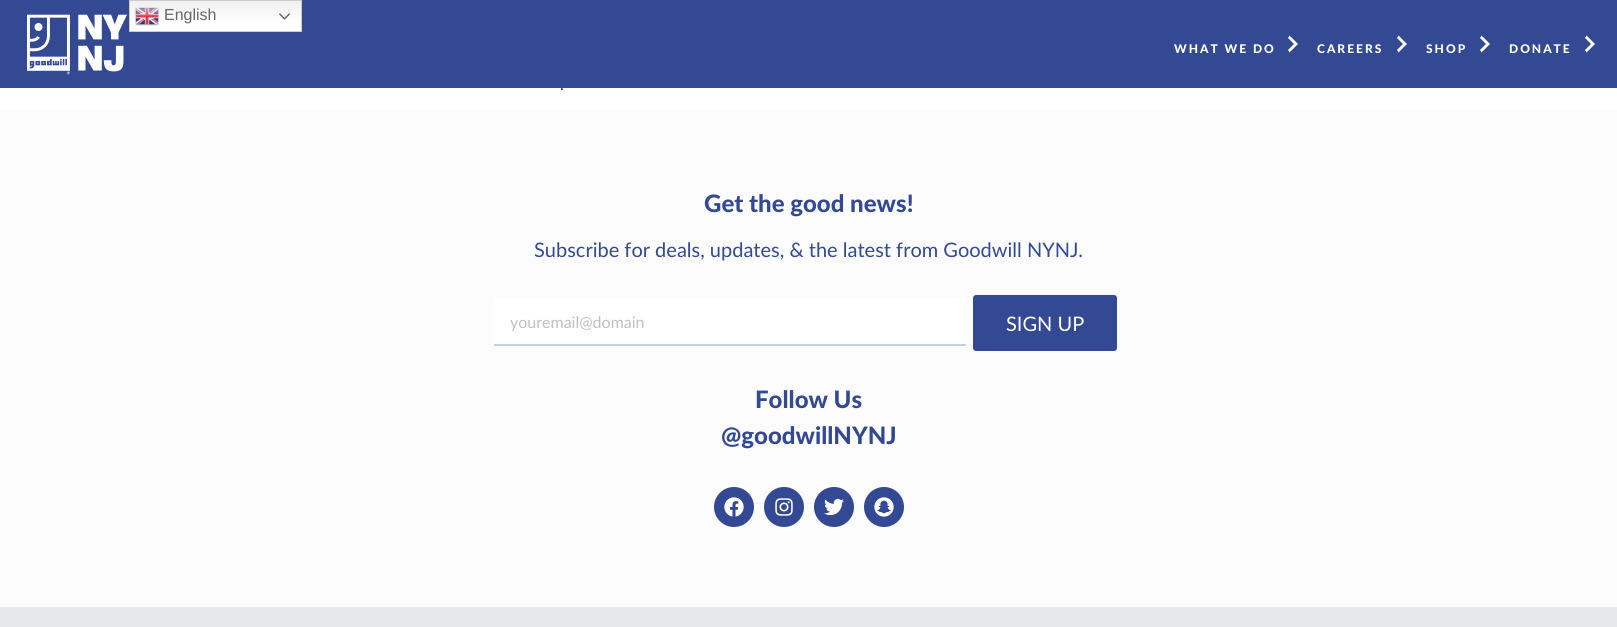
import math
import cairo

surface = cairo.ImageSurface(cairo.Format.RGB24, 1617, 627)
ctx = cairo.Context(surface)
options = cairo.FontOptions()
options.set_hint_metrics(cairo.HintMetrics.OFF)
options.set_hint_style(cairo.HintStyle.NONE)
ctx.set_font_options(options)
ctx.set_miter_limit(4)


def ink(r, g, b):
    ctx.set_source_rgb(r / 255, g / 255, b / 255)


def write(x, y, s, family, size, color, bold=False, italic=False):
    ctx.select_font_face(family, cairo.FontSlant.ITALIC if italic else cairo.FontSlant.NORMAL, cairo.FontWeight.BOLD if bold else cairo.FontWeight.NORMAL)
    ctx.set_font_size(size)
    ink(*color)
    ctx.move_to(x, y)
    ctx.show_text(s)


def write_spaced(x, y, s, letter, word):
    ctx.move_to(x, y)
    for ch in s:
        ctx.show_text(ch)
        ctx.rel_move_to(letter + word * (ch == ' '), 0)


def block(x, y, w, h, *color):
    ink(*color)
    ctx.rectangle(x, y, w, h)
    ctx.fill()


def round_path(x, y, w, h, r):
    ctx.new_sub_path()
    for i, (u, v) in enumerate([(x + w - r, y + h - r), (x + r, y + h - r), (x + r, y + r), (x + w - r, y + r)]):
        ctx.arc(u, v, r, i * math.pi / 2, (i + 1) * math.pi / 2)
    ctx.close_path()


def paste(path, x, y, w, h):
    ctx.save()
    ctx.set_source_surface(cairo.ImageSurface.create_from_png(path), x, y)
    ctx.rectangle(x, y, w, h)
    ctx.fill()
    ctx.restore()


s1 = dict(family="Liberation Sans", size=16, color=(102, 102, 102))
s2 = dict(family="Lato", size=16, color=(51, 51, 51))
s3 = dict(family="Lato Black", size=24, color=(51, 73, 148))
s4 = dict(family="Lato", size=20, color=(51, 73, 148))
s5 = dict(family="Lato", size=16, color=(189, 193, 195))
s6 = dict(family="Lato", size=20, color=(255, 255, 255))

ink(255, 255, 255)
ctx.paint()
block(0, 0, 1617, 88, 51, 73, 148)
gradient = cairo.LinearGradient(216, 0, 216, 32)
gradient.add_color_stop_rgba(0, 0.937, 0.937, 0.937, 1)
gradient.add_color_stop_rgba(0.7, 1, 1, 1, 1)
ctx.set_source(gradient)
ctx.rectangle(130, 1, 171, 30)
ctx.fill()
ctx.rectangle(129.5, 0.5, 172, 31)
ink(204, 204, 204)
ctx.set_line_width(1)
ctx.stroke()
paste("pic1.png", 135, 7, 24, 19)
write(164, 20, "English", **s1)
paste("pic2.png", 279, 13, 11, 7)
paste("pic3.png", 27, 14, 100, 61)
ctx.select_font_face("Lato Black")
ctx.set_font_size(12)
ink(255, 255, 255)
write_spaced(1174, 53, "WHAT WE DO", 2, 0)
ctx.new_path()
ctx.move_to(1288, 50)
ctx.line_to(1294, 44)
ctx.line_to(1288, 38)
ctx.line_to(1289.5, 35.5)
ctx.line_to(1298, 44)
ctx.line_to(1289.5, 52.5)
ctx.close_path()
ctx.fill()
write_spaced(1317, 53, "CAREERS", 2, 0)
ctx.new_path()
ctx.move_to(1397, 50)
ctx.line_to(1403, 44)
ctx.line_to(1397, 38)
ctx.line_to(1398.5, 35.5)
ctx.line_to(1407, 44)
ctx.line_to(1398.5, 52.5)
ctx.close_path()
ctx.fill()
write_spaced(1426, 53, "SHOP", 2, 0)
ctx.new_path()
ctx.move_to(1480, 50)
ctx.line_to(1486, 44)
ctx.line_to(1480, 38)
ctx.line_to(1481.5, 35.5)
ctx.line_to(1490, 44)
ctx.line_to(1481.5, 52.5)
ctx.close_path()
ctx.fill()
write_spaced(1509, 53, "DONATE", 2, 0)
ctx.new_path()
ctx.move_to(1585, 50)
ctx.line_to(1591, 44)
ctx.line_to(1585, 38)
ctx.line_to(1586.5, 35.5)
ctx.line_to(1595, 44)
ctx.line_to(1586.5, 52.5)
ctx.close_path()
ctx.fill()
write(560, 90, ".", **s2)
block(0, 110, 1617, 497, 252, 252, 252)
write(704, 212, "Get the good news!", **s3)
write(534, 257, "Subscribe for deals, updates, & the latest from Goodwill NYNJ.", **s4)
block(494, 299, 472, 45, 255, 255, 255)
block(494, 344, 472, 2, 194, 208, 226)
write(510, 328, "youremail@domain", **s5)
ink(51, 73, 148)
round_path(973, 295, 144, 56, 3)
ctx.fill()
write(1006, 331, "SIGN UP", **s6)
write(755, 408, "Follow Us", **s3)
write(721, 444, "@goodwillNYNJ", **s3)
ctx.new_path()
ctx.arc(734, 507, 20, 0, 2 * math.pi)
ctx.fill()
paste("pic4.png", 724, 497, 20, 20)
ctx.arc(784, 507, 20, 0, 2 * math.pi)
ctx.fill()
paste("pic5.png", 775, 498, 18, 18)
ctx.arc(834, 507, 20, 0, 2 * math.pi)
ctx.fill()
paste("pic6.png", 824, 498, 20, 18)
ctx.arc(884, 507, 20, 0, 2 * math.pi)
ctx.fill()
paste("pic7.png", 874, 497, 20, 20)
block(0, 607, 1617, 20, 230, 232, 233)
surface.write_to_png("screenshot.png")
